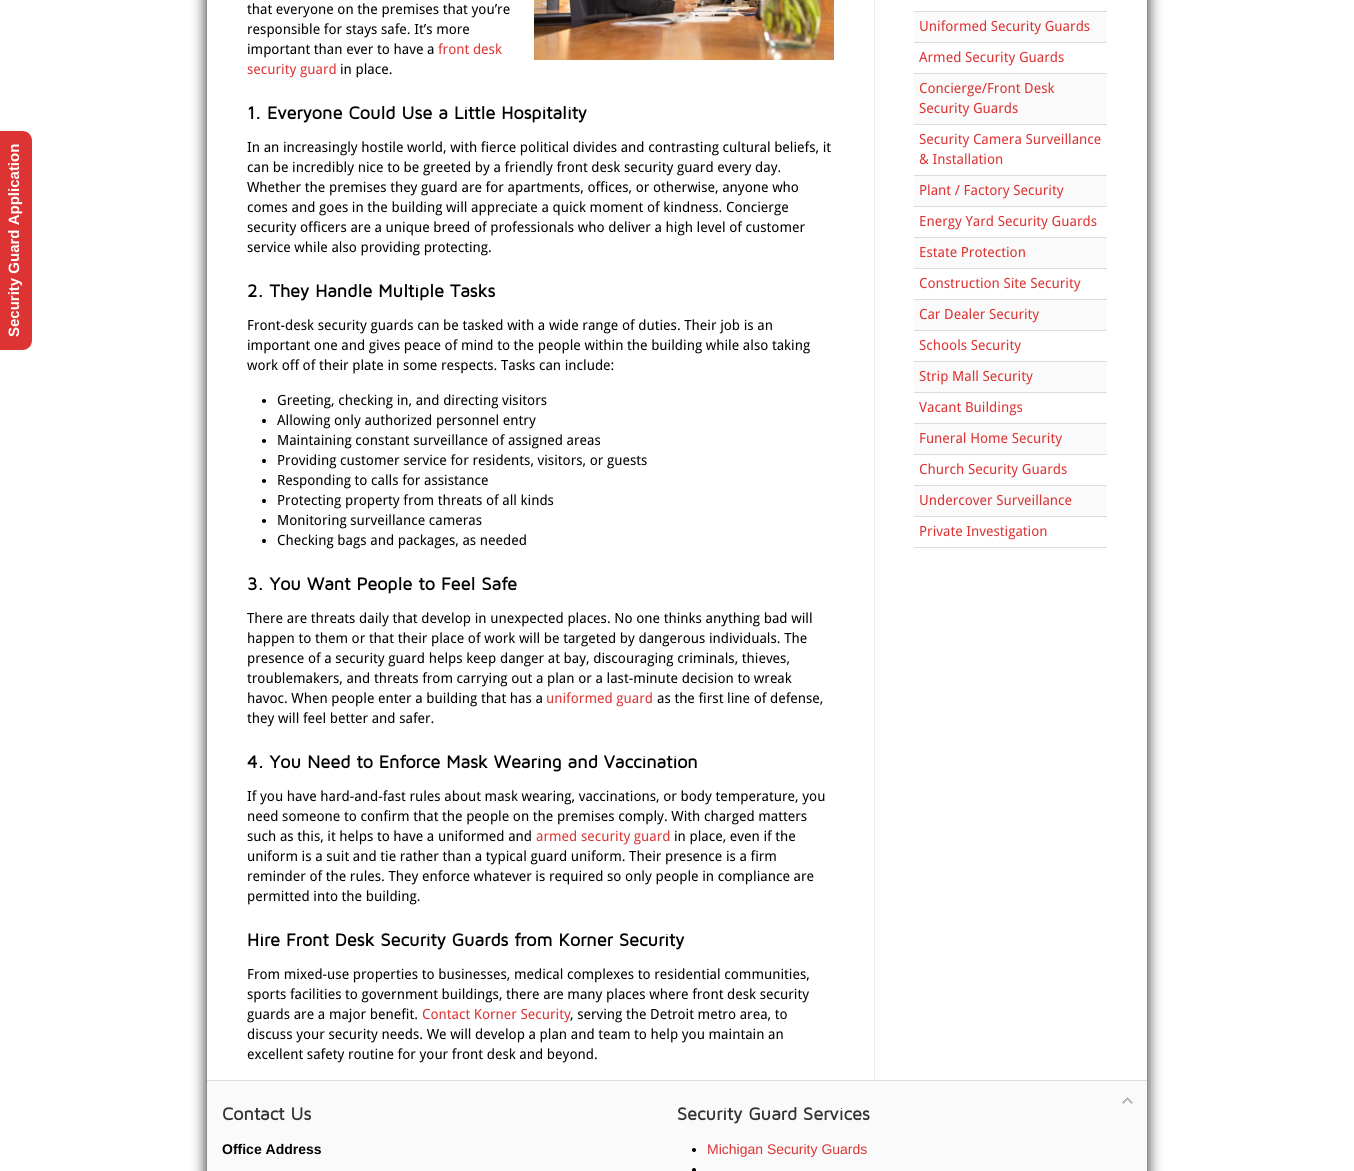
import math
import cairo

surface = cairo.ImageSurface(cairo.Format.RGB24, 1354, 1171)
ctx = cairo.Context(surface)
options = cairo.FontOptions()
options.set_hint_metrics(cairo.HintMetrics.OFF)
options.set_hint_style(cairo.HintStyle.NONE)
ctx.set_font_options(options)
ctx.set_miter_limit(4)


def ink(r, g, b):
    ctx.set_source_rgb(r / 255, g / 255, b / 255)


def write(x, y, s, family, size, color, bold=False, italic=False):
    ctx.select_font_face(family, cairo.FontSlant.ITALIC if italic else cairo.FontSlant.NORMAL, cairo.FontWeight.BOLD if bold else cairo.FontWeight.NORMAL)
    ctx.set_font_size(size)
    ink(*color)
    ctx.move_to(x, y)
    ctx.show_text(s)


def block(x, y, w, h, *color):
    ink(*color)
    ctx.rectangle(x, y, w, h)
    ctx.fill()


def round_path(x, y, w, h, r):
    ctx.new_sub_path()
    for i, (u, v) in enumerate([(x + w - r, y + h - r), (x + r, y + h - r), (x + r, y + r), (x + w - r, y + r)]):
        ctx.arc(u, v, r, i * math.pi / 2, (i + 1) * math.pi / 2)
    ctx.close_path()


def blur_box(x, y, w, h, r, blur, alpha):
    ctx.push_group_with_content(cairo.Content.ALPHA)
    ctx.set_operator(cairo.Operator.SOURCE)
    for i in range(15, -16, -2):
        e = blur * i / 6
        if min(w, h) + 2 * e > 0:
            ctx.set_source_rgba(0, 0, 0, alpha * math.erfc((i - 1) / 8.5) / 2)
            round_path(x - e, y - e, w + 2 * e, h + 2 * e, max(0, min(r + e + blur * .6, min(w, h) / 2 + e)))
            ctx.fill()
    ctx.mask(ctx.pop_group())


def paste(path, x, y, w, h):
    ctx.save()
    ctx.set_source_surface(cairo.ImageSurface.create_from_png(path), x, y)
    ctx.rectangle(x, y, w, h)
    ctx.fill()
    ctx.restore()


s1 = dict(family="Liberation Sans", size=15, color=(255, 255, 255), bold=True)
s2 = dict(family="Droid Sans", size=14, color=(0, 0, 0))
s3 = dict(family="Droid Sans", size=14, color=(221, 51, 51))
s4 = dict(family="Maven Pro", size=18, color=(0, 0, 0), bold=True)
s5 = dict(family="Maven Pro", size=18, color=(51, 51, 51), bold=True)
s6 = dict(family="Liberation Sans", size=14, color=(0, 0, 0), bold=True)
s7 = dict(family="Liberation Sans", size=14, color=(221, 51, 51))

ink(255, 255, 255)
ctx.paint()
ink(221, 51, 51)
ctx.new_path()
ctx.move_to(-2, 350)
ctx.line_to(-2, 131)
ctx.line_to(22, 131)
ctx.curve_to(28, 131, 32, 135, 32, 141)
ctx.line_to(32, 340)
ctx.curve_to(32, 346, 28, 350, 22, 350)
ctx.close_path()
ctx.fill()
ctx.save()
ctx.translate(19, 337)
ctx.rotate(-90 * math.pi / 180)
write(0, 0, "Security Guard Application", **s1)
ctx.restore()
ctx.save()
ctx.set_fill_rule(cairo.FillRule.EVEN_ODD)
ctx.new_path()
ctx.move_to(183, 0)
ctx.line_to(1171, 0)
ctx.line_to(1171, 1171)
ctx.line_to(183, 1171)
ctx.close_path()
ctx.move_to(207, -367)
ctx.line_to(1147, -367)
ctx.line_to(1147, 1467)
ctx.line_to(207, 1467)
ctx.close_path()
ctx.clip()
ink(0, 0, 0)
blur_box(207, -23, 940, 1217, 0, 7.5, 0.9)
ctx.restore()
write(247, 14, "that everyone on the premises that you’re", **s2)
paste("pic1.png", 534, 0, 300, 60)
write(247, 34, "responsible for stays safe. It’s more", **s2)
write(247, 54, "important than ever to have a", **s2)
write(438, 54, "front desk", **s3)
write(247, 74, "security guard", **s3)
write(340, 74, "in place.", **s2)
write(247, 119, "1. Everyone Could Use a Little Hospitality", **s4)
write(247, 152, "In an increasingly hostile world, with fierce political divides and contrasting cultural beliefs, it", **s2)
write(247, 172, "can be incredibly nice to be greeted by a friendly front desk security guard every day.", **s2)
write(247, 192, "Whether the premises they guard are for apartments, offices, or otherwise, anyone who", **s2)
write(247, 212, "comes and goes in the building will appreciate a quick moment of kindness. Concierge", **s2)
write(247, 232, "security officers are a unique breed of professionals who deliver a high level of customer", **s2)
write(247, 252, "service while also providing protecting.", **s2)
write(247, 297, "2. They Handle Multiple Tasks", **s4)
write(247, 330, "Front-desk security guards can be tasked with a wide range of duties. Their job is an", **s2)
write(247, 350, "important one and gives peace of mind to the people within the building while also taking", **s2)
write(247, 370, "work off of their plate in some respects. Tasks can include:", **s2)
ctx.new_path()
ctx.arc(264, 401, 2, 0, 2 * math.pi)
ctx.fill()
write(277, 405, "Greeting, checking in, and directing visitors", **s2)
ctx.new_path()
ctx.arc(264, 421, 2, 0, 2 * math.pi)
ctx.fill()
write(277, 425, "Allowing only authorized personnel entry", **s2)
ctx.new_path()
ctx.arc(264, 441, 2, 0, 2 * math.pi)
ctx.fill()
write(277, 445, "Maintaining constant surveillance of assigned areas", **s2)
ctx.new_path()
ctx.arc(264, 461, 2, 0, 2 * math.pi)
ctx.fill()
write(277, 465, "Providing customer service for residents, visitors, or guests", **s2)
ctx.new_path()
ctx.arc(264, 481, 2, 0, 2 * math.pi)
ctx.fill()
write(277, 485, "Responding to calls for assistance", **s2)
ctx.new_path()
ctx.arc(264, 501, 2, 0, 2 * math.pi)
ctx.fill()
write(277, 505, "Protecting property from threats of all kinds", **s2)
ctx.new_path()
ctx.arc(264, 521, 2, 0, 2 * math.pi)
ctx.fill()
write(277, 525, "Monitoring surveillance cameras", **s2)
ctx.new_path()
ctx.arc(264, 541, 2, 0, 2 * math.pi)
ctx.fill()
write(277, 545, "Checking bags and packages, as needed", **s2)
write(247, 590, "3. You Want People to Feel Safe", **s4)
write(247, 623, "There are threats daily that develop in unexpected places. No one thinks anything bad will", **s2)
write(247, 643, "happen to them or that their place of work will be targeted by dangerous individuals. The", **s2)
write(247, 663, "presence of a security guard helps keep danger at bay, discouraging criminals, thieves,", **s2)
write(247, 683, "troublemakers, and threats from carrying out a plan or a last-minute decision to wreak", **s2)
write(247, 703, "havoc. When people enter a building that has a", **s2)
write(546, 703, "uniformed guard", **s3)
write(657, 703, "as the first line of defense,", **s2)
write(247, 723, "they will feel better and safer.", **s2)
write(247, 768, "4. You Need to Enforce Mask Wearing and Vaccination", **s4)
write(247, 801, "If you have hard-and-fast rules about mask wearing, vaccinations, or body temperature, you", **s2)
write(247, 821, "need someone to confirm that the people on the premises comply. With charged matters", **s2)
write(247, 841, "such as this, it helps to have a uniformed and", **s2)
write(536, 841, "armed security guard", **s3)
write(674, 841, "in place, even if the", **s2)
write(247, 861, "uniform is a suit and tie rather than a typical guard uniform. Their presence is a firm", **s2)
write(247, 881, "reminder of the rules. They enforce whatever is required so only people in compliance are", **s2)
write(247, 901, "permitted into the building.", **s2)
write(247, 946, "Hire Front Desk Security Guards from Korner Security", **s4)
write(247, 979, "From mixed-use properties to businesses, medical complexes to residential communities,", **s2)
write(247, 999, "sports facilities to government buildings, there are many places where front desk security", **s2)
write(247, 1019, "guards are a major benefit.", **s2)
write(422, 1019, "Contact Korner Security", **s3)
write(570, 1019, ", serving the Detroit metro area, to", **s2)
write(247, 1039, "discuss your security needs. We will develop a plan and team to help you maintain an", **s2)
write(247, 1059, "excellent safety routine for your front desk and beyond.", **s2)
block(874, 0, 1, 1080, 238, 238, 238)
block(914, 12, 193, 30, 250, 250, 250)
block(914, 11, 193, 1, 221, 221, 221)
block(914, 42, 193, 1, 221, 221, 221)
write(919, 31, "Uniformed Security Guards", **s3)
block(914, 73, 193, 1, 221, 221, 221)
write(919, 62, "Armed Security Guards", **s3)
block(914, 74, 193, 50, 250, 250, 250)
block(914, 124, 193, 1, 221, 221, 221)
write(919, 93, "Concierge/Front Desk", **s3)
write(919, 113, "Security Guards", **s3)
block(914, 175, 193, 1, 221, 221, 221)
write(919, 144, "Security Camera Surveillance", **s3)
write(919, 164, "& Installation", **s3)
block(914, 176, 193, 30, 250, 250, 250)
block(914, 206, 193, 1, 221, 221, 221)
write(919, 195, "Plant / Factory Security", **s3)
block(914, 237, 193, 1, 221, 221, 221)
write(919, 226, "Energy Yard Security Guards", **s3)
block(914, 238, 193, 30, 250, 250, 250)
block(914, 268, 193, 1, 221, 221, 221)
write(919, 257, "Estate Protection", **s3)
block(914, 299, 193, 1, 221, 221, 221)
write(919, 288, "Construction Site Security", **s3)
block(914, 300, 193, 30, 250, 250, 250)
block(914, 330, 193, 1, 221, 221, 221)
write(919, 319, "Car Dealer Security", **s3)
block(914, 361, 193, 1, 221, 221, 221)
write(919, 350, "Schools Security", **s3)
block(914, 362, 193, 30, 250, 250, 250)
block(914, 392, 193, 1, 221, 221, 221)
write(919, 381, "Strip Mall Security", **s3)
block(914, 423, 193, 1, 221, 221, 221)
write(919, 412, "Vacant Buildings", **s3)
block(914, 424, 193, 30, 250, 250, 250)
block(914, 454, 193, 1, 221, 221, 221)
write(919, 443, "Funeral Home Security", **s3)
block(914, 485, 193, 1, 221, 221, 221)
write(919, 474, "Church Security Guards", **s3)
block(914, 486, 193, 30, 250, 250, 250)
block(914, 516, 193, 1, 221, 221, 221)
write(919, 505, "Undercover Surveillance", **s3)
block(914, 547, 193, 1, 221, 221, 221)
write(919, 536, "Private Investigation", **s3)
block(207, 1081, 940, 90, 250, 250, 250)
block(207, 1080, 940, 1, 221, 221, 221)
paste("pic2.png", 1122, 1097, 11, 7)
write(222, 1120, "Contact Us", **s5)
write(222, 1154, "Office Address", **s6)
write(677, 1120, "Security Guard Services", **s5)
ink(0, 0, 0)
ctx.new_path()
ctx.arc(694, 1150, 2, 0, 2 * math.pi)
ctx.fill()
write(707, 1154, "Michigan Security Guards", **s7)
ink(0, 0, 0)
ctx.new_path()
ctx.arc(694, 1170, 2, 0, 2 * math.pi)
ctx.fill()
surface.write_to_png("screenshot.png")
